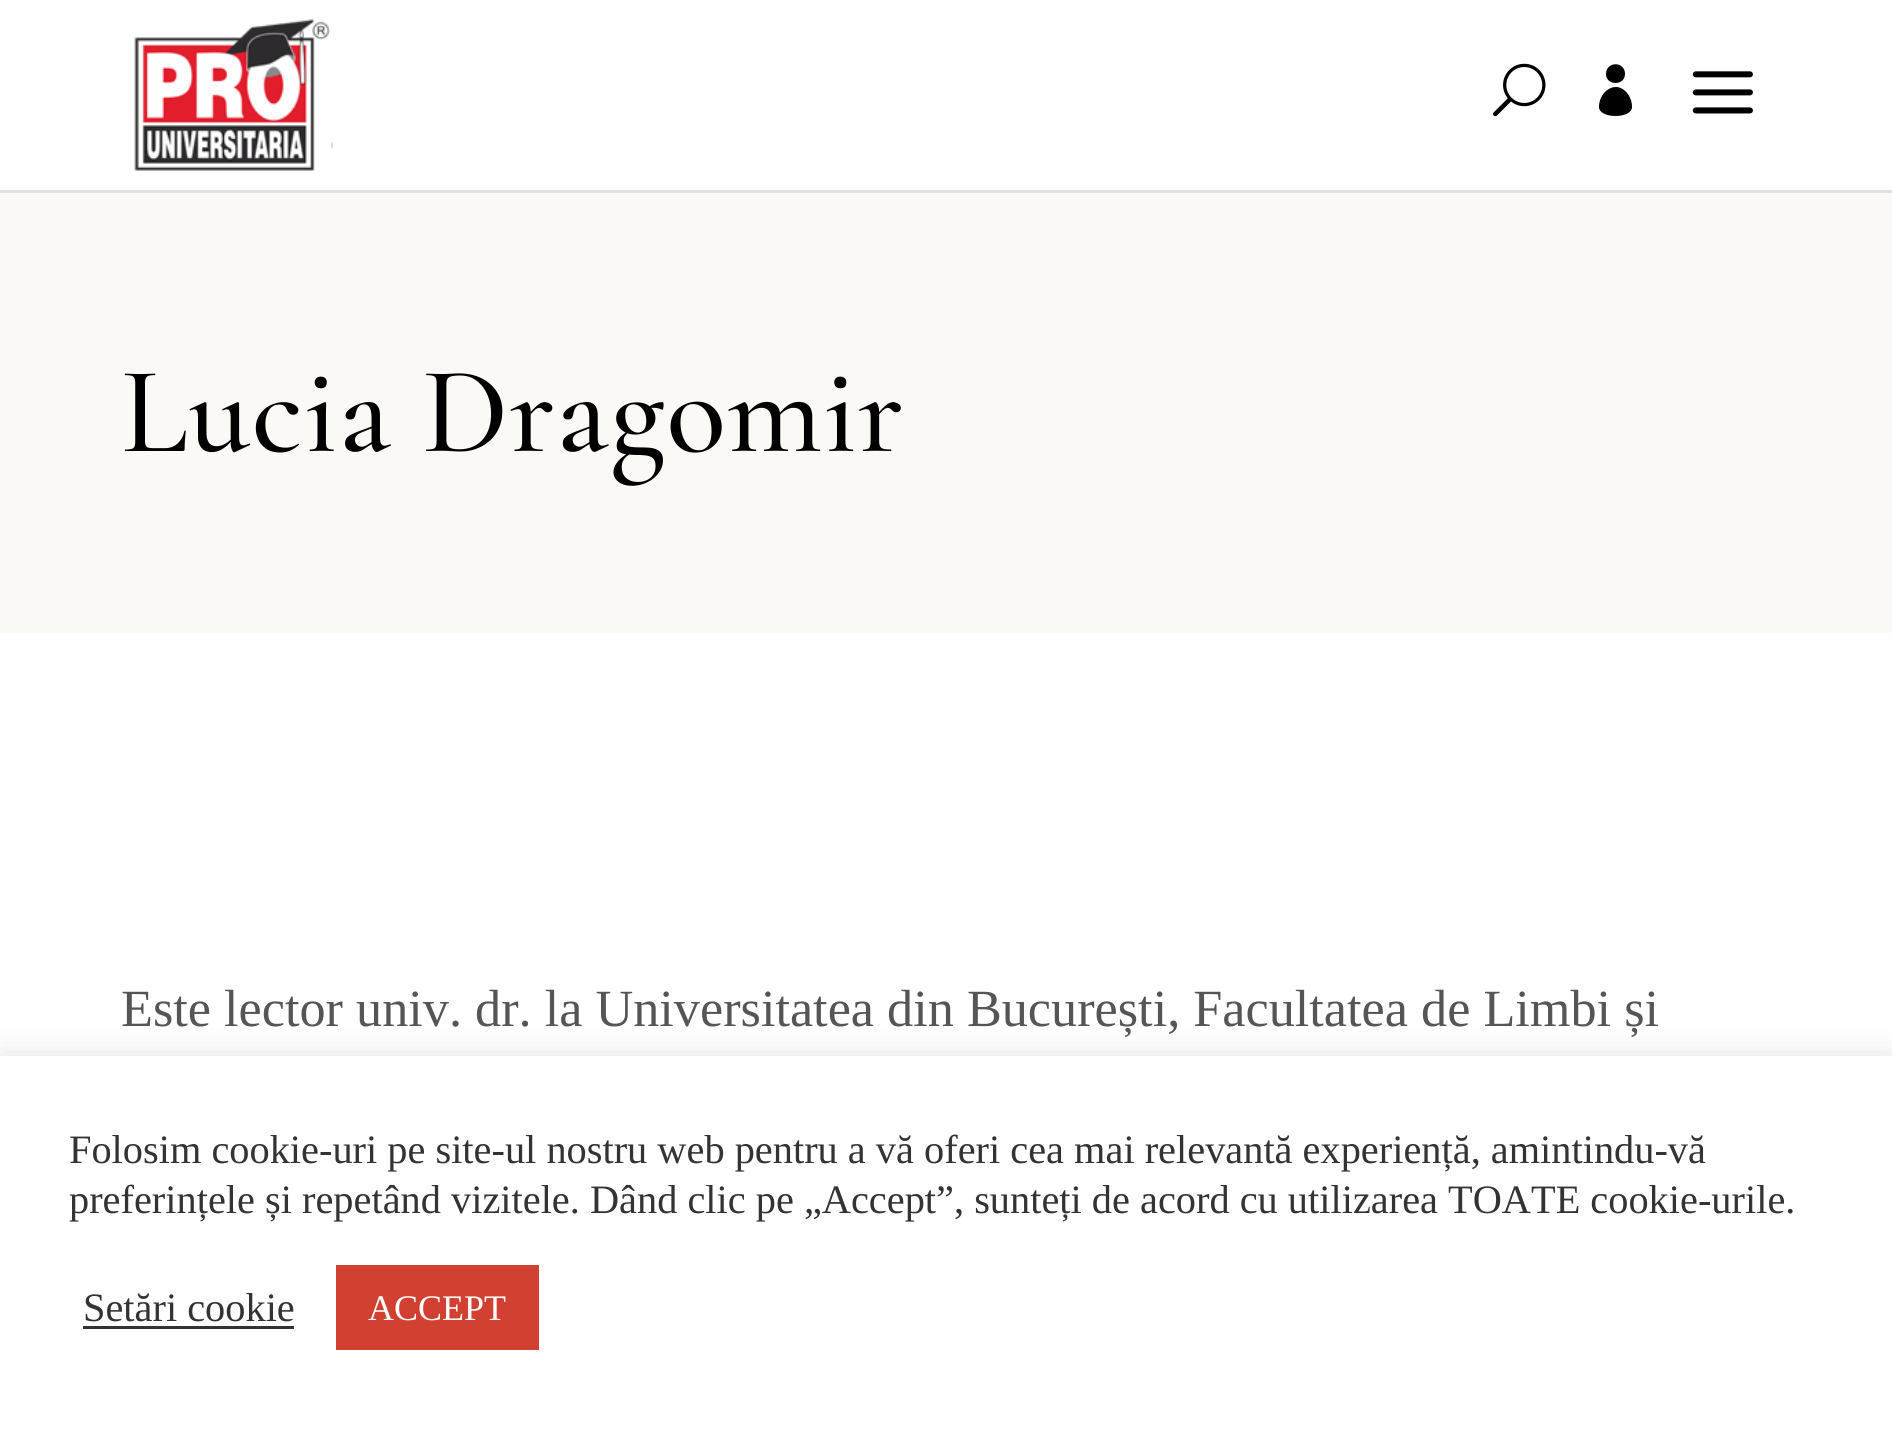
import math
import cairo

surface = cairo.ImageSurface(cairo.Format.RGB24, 1892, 1432)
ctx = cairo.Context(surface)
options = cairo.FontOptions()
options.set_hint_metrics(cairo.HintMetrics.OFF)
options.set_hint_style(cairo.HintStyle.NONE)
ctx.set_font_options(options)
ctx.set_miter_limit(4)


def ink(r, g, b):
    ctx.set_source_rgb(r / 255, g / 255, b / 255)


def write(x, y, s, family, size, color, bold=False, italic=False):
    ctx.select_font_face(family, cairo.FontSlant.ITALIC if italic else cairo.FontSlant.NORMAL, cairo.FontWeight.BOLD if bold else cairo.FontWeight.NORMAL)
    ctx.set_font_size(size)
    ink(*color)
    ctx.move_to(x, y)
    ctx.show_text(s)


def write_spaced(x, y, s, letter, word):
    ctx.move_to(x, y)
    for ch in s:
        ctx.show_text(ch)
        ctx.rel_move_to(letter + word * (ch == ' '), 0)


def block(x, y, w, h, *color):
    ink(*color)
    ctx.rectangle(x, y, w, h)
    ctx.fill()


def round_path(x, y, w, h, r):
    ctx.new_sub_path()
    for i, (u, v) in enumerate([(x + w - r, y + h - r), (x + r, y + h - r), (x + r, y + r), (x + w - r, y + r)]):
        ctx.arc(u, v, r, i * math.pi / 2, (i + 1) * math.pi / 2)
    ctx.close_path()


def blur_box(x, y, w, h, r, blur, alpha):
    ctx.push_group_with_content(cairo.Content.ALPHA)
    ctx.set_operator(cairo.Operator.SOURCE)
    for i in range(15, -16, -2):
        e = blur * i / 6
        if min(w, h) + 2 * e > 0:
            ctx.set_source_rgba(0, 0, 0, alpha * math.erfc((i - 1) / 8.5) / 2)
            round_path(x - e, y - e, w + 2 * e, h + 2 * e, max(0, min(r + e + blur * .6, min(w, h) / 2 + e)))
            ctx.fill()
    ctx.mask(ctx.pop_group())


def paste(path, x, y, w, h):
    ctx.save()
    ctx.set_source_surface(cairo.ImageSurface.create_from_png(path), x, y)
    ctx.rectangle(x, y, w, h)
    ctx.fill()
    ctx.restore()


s1 = dict(family="Liberation Serif", size=52.25, color=(85, 85, 85))
s2 = dict(family="Liberation Serif", size=40.35, color=(51, 51, 51))
s3 = dict(family="Liberation Serif", size=36, color=(255, 255, 255))

ink(255, 255, 255)
ctx.paint()
block(0, 190, 1892, 3, 225, 225, 225)
paste("pic1.png", 134, 19, 199, 152)
paste("pic2.png", 1493, 63, 53, 54)
ink(0, 0, 0)
ctx.new_path()
ctx.move_to(1625, 74)
ctx.curve_to(1625, 86, 1606, 86, 1606, 74)
ctx.curve_to(1606, 61, 1625, 61, 1625, 74)
ctx.close_path()
ctx.move_to(1616, 87)
ctx.curve_to(1624, 87, 1632, 96, 1632, 107)
ctx.curve_to(1632, 119, 1599, 119, 1599, 107)
ctx.curve_to(1599, 96, 1607, 87, 1616, 87)
ctx.close_path()
ctx.fill()
paste("pic3.png", 1692, 71, 61, 43)
block(0, 193, 1892, 440, 251, 249, 246)
ctx.select_font_face("Cormorant Garamond Medium")
ctx.set_font_size(123.75)
ink(0, 0, 0)
write_spaced(121, 451, "Lucia Dragomir", 1.25, 0)
write(121, 1026, "Este lector univ. dr. la Universitatea din București, Facultatea de Limbi și", **s1)
ink(172, 171, 171)
blur_box(0, 1053, 1892, 377, 0, 14, 0.3)
block(0, 1056, 1892, 376, 255, 255, 255)
write(69, 1163, "Folosim cookie-uri pe site-ul nostru web pentru a vă oferi cea mai relevantă experiență, amintindu-vă", **s2)
write(69, 1213, "preferințele și repetând vizitele. Dând clic pe „Accept”, sunteți de acord cu utilizarea TOATE cookie-urile.", **s2)
write(83, 1321, "Setări cookie", **s2)
block(83, 1326, 211, 3, 51, 51, 51)
block(336, 1265, 203, 85, 209, 64, 49)
write(368, 1320, "ACCEPT", **s3)
surface.write_to_png("screenshot.png")
